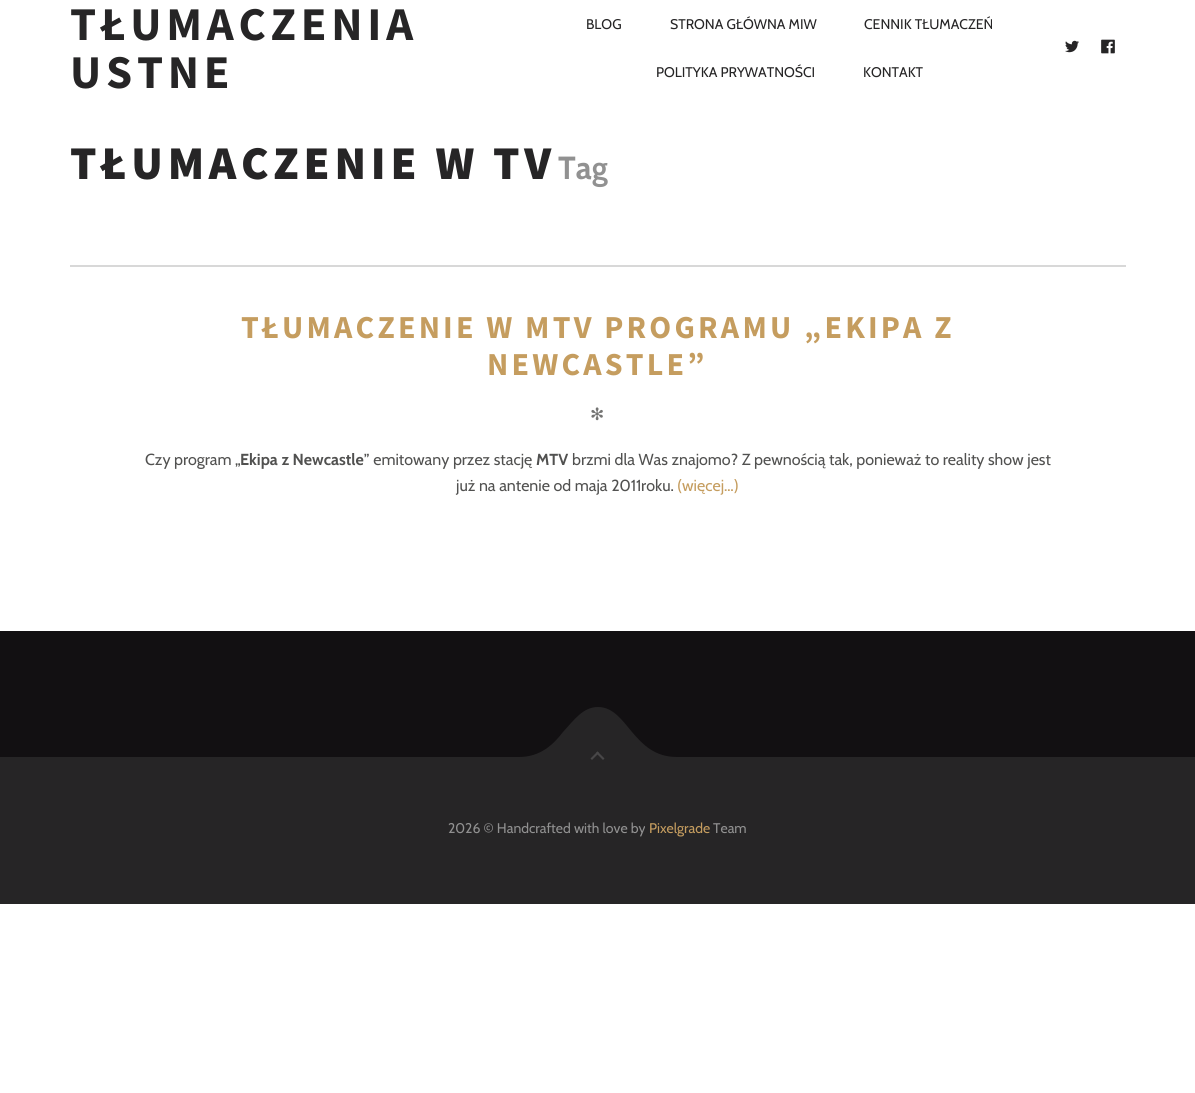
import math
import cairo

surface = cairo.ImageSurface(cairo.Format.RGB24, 1195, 1093)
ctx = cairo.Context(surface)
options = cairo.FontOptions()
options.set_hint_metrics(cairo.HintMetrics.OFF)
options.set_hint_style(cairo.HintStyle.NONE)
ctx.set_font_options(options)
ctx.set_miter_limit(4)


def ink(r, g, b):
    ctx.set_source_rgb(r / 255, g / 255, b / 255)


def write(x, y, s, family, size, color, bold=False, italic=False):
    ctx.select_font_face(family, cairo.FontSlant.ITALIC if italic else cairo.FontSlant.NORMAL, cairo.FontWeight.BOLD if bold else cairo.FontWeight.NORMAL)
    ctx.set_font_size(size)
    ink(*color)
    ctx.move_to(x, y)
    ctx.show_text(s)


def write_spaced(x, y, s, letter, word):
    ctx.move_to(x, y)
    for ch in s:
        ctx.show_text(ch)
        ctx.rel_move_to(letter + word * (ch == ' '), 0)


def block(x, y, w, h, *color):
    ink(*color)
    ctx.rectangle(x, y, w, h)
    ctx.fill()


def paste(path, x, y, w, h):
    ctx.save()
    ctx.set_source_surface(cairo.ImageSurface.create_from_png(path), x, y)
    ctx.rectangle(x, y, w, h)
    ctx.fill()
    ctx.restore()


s1 = dict(family="Cabin", size=14, color=(38, 37, 38))
s2 = dict(family="Cabin", size=32, color=(145, 145, 145), bold=True)
s3 = dict(family="DejaVu Sans", size=17, color=(116, 116, 115))
s4 = dict(family="Cabin", size=16, color=(81, 81, 80))
s5 = dict(family="Cabin", size=16, color=(81, 81, 80), bold=True)
s6 = dict(family="Cabin", size=16, color=(197, 157, 95))
s7 = dict(family="Cabin", size=14, color=(145, 145, 145))
s8 = dict(family="Cabin", size=14, color=(197, 157, 95))

ink(255, 255, 255)
ctx.paint()
ctx.select_font_face("Source Sans Pro", cairo.FontSlant.NORMAL, cairo.FontWeight.BOLD)
ctx.set_font_size(47)
ink(38, 37, 38)
write_spaced(70, 40, "TŁUMACZENIA", 4.75, 0)
write_spaced(70, 88, "USTNE", 4.75, 0)
write(586, 29, "BLOG", **s1)
write(670, 29, "STRONA GŁÓWNA MIW", **s1)
write(864, 29, "CENNIK TŁUMACZEŃ", **s1)
write(656, 77, "POLITYKA PRYWATNOŚCI", **s1)
write(863, 77, "KONTAKT", **s1)
paste("pic1.png", 1065, 40, 14, 13)
paste("pic2.png", 1101, 39, 14, 15)
ctx.select_font_face("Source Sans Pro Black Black")
ctx.set_font_size(47)
write_spaced(70, 179, "TŁUMACZENIE W TV", 4.75, 0)
write(558, 179, "Tag", **s2)
block(70, 265, 1056, 2, 216, 216, 216)
ctx.select_font_face("Source Sans Pro", cairo.FontSlant.NORMAL, cairo.FontWeight.BOLD)
ink(197, 157, 95)
write_spaced(241, 338, "TŁUMACZENIE W MTV PROGRAMU „EKIPA Z", 3.2, 0)
write_spaced(487, 375, "NEWCASTLE”", 3.2, 0)
write(590, 420, "✻", **s3)
write(145, 465, "Czy program „", **s4)
write(240, 465, "Ekipa z Newcastle", **s5)
write(364, 465, "” emitowany przez stację", **s4)
write(536, 465, "MTV", **s5)
write(572, 465, "brzmi dla Was znajomo? Z pewnością tak, ponieważ to reality show jest", **s4)
write(456, 491, "już na antenie od maja 2011roku.", **s4)
write(677, 491, "(więcej…)", **s6)
block(0, 631, 1195, 126, 18, 16, 18)
block(0, 757, 1195, 147, 38, 37, 38)
ctx.new_path()
ctx.move_to(598, 768)
ctx.line_to(641, 763)
ctx.curve_to(662, 760, 681, 757, 677, 757)
ctx.curve_to(655, 757, 643, 745, 632, 732)
ctx.curve_to(622, 720, 613, 707, 598, 707)
ctx.curve_to(583, 707, 574, 720, 563, 732)
ctx.curve_to(553, 745, 540, 757, 519, 757)
ctx.curve_to(515, 757, 512, 757, 522, 759)
ctx.close_path()
ctx.fill()
ink(72, 71, 72)
ctx.new_path()
ctx.move_to(597.5, 751.5)
ctx.line_to(604.5, 758.5)
ctx.line_to(603, 760)
ctx.line_to(596, 753)
ctx.close_path()
ctx.fill()
ctx.new_path()
ctx.move_to(597.5, 751.5)
ctx.line_to(599, 753)
ctx.line_to(592, 760)
ctx.line_to(590.5, 758.5)
ctx.close_path()
ctx.fill()
write(448, 833, "2026 © Handcrafted with love by", **s7)
write(649, 833, "Pixelgrade", **s8)
write(713, 833, "Team", **s7)
surface.write_to_png("screenshot.png")
